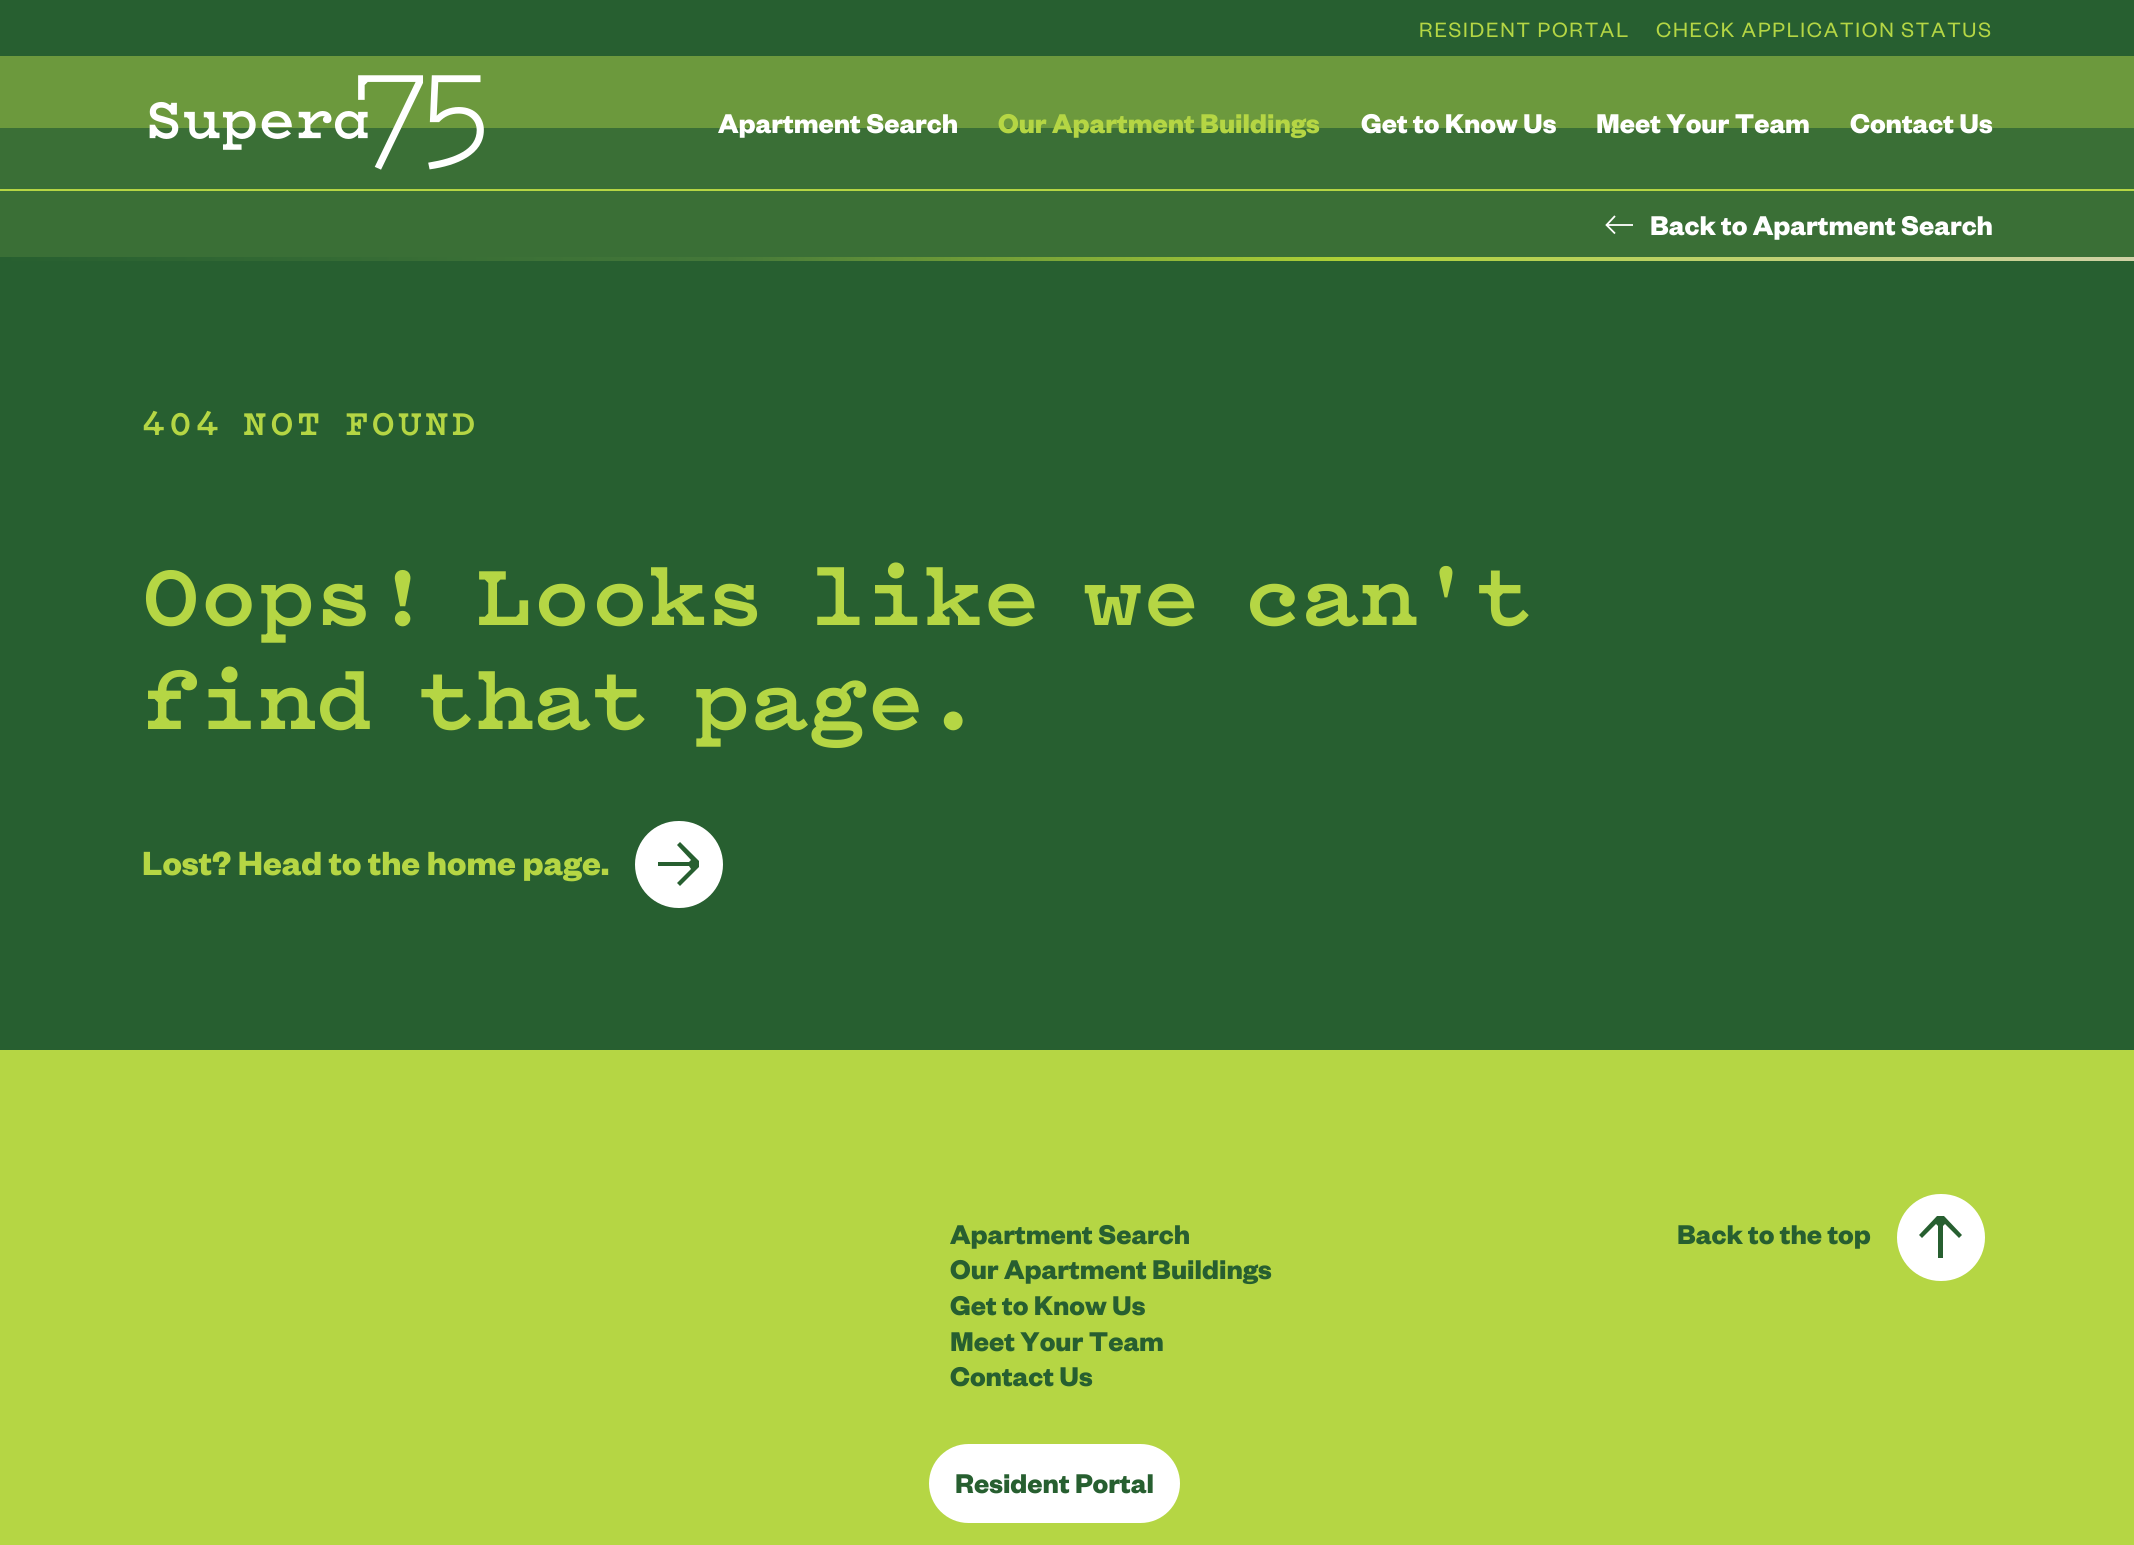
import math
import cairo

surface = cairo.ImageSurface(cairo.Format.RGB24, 2134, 1545)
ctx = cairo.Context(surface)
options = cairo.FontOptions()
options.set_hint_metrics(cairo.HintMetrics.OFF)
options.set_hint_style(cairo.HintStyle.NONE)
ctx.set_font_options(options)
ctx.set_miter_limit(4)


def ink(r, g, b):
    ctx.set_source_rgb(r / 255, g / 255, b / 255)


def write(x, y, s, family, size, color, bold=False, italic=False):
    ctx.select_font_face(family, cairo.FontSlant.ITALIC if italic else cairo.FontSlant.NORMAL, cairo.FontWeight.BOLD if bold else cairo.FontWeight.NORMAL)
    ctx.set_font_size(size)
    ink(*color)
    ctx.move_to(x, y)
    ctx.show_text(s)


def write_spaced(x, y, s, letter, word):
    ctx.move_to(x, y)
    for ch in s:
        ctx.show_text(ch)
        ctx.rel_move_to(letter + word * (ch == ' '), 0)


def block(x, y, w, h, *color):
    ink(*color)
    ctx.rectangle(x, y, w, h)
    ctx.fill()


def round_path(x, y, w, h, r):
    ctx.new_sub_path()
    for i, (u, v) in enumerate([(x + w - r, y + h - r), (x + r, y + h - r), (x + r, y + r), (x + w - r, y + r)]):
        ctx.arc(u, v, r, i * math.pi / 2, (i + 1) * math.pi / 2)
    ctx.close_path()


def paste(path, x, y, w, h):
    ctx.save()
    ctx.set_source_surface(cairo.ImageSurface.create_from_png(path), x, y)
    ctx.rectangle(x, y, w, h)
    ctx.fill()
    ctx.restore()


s1 = dict(family="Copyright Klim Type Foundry", size=29.75, color=(255, 255, 255), bold=True)
s2 = dict(family="Copyright Klim Type Foundry", size=29.75, color=(181, 214, 68), bold=True)
s3 = dict(family="Copyright Klim Type Foundry", size=36.75, color=(181, 214, 68), bold=True)
s4 = dict(family="Copyright Klim Type Foundry", size=29.75, color=(39, 95, 48), bold=True)

ink(181, 214, 68)
ctx.paint()
block(0, 56, 2134, 72, 108, 153, 61)
block(0, 0, 2134, 56, 39, 95, 48)
ctx.select_font_face("Copyright Klim Type Foundry")
ctx.set_font_size(22.75)
ink(181, 214, 68)
write_spaced(1419, 37, "RESIDENT PORTAL", 1.75, 0)
write_spaced(1656, 37, "CHECK APPLICATION STATUS", 1.75, 0)
block(0, 128, 2134, 129, 58, 111, 54)
paste("pic1.png", 149, 75, 335, 95)
write(718, 133, "Apartment Search", **s1)
write(998, 133, "Our Apartment Buildings", **s2)
write(1361, 133, "Get to Know Us", **s1)
write(1596, 133, "Meet Your Team", **s1)
write(1850, 133, "Contact Us", **s1)
block(0, 189, 2134, 2, 181, 214, 68)
block(1607, 224, 26, 2, 235, 241, 235)
ctx.new_path()
ctx.move_to(1615, 216)
ctx.line_to(1606.5, 225)
ctx.line_to(1615, 233.5)
ink(255, 255, 255)
ctx.set_line_width(1.8)
ctx.stroke()
write(1650, 235, "Back to Apartment Search", **s1)
gradient = cairo.LinearGradient(0, 259, 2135, 259)
gradient.add_color_stop_rgba(0, 0.153, 0.373, 0.188, 1)
gradient.add_color_stop_rgba(0.34, 0.267, 0.471, 0.224, 1)
gradient.add_color_stop_rgba(0.63, 0.682, 0.82, 0.216, 1)
gradient.add_color_stop_rgba(1, 0.812, 0.82, 0.651, 1)
ctx.set_source(gradient)
ctx.rectangle(0, 257, 2134, 4)
ctx.fill()
block(0, 261, 2134, 789, 39, 95, 48)
ctx.select_font_face("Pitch", cairo.FontSlant.NORMAL, cairo.FontWeight.BOLD)
ctx.set_font_size(38)
ink(181, 214, 68)
write_spaced(142, 435, "404 NOT FOUND", 3.5, -6)
ctx.set_font_size(94.25)
write_spaced(142, 625, "Oops! Looks like we can't", 0, -14)
write_spaced(142, 729, "find that page.", 0, -14)
write(142, 875, "Lost? Head to the home page.", **s3)
ink(255, 255, 255)
round_path(635, 821, 88, 87, 43.5)
ctx.fill()
ink(39, 95, 48)
ctx.new_path()
ctx.move_to(699, 861)
ctx.line_to(680, 842)
ctx.line_to(677, 845)
ctx.line_to(691, 860)
ctx.line_to(689, 862)
ctx.line_to(658, 862)
ctx.line_to(658, 866)
ctx.line_to(689, 866)
ctx.line_to(691, 869)
ctx.line_to(677, 883)
ctx.line_to(680, 886)
ctx.line_to(699, 867)
ctx.close_path()
ctx.fill()
write(950, 1244, "Apartment Search", **s4)
write(950, 1279, "Our Apartment Buildings", **s4)
write(950, 1315, "Get to Know Us", **s4)
write(950, 1351, "Meet Your Team", **s4)
write(950, 1386, "Contact Us", **s4)
ink(255, 255, 255)
round_path(929, 1444, 251, 79, 39.5)
ctx.fill()
write(955, 1493, "Resident Portal", **s4)
write(1677, 1244, "Back to the top", **s4)
ink(255, 255, 255)
round_path(1897, 1194, 88, 87, 43.5)
ctx.fill()
ink(39, 95, 48)
ctx.new_path()
ctx.move_to(1937, 1216)
ctx.line_to(1919, 1235)
ctx.line_to(1922, 1238)
ctx.line_to(1936, 1224)
ctx.line_to(1938, 1226)
ctx.line_to(1938, 1258)
ctx.line_to(1943, 1258)
ctx.line_to(1943, 1226)
ctx.line_to(1945, 1224)
ctx.line_to(1959, 1238)
ctx.line_to(1962, 1235)
ctx.line_to(1944, 1216)
ctx.close_path()
ctx.fill()
surface.write_to_png("screenshot.png")
